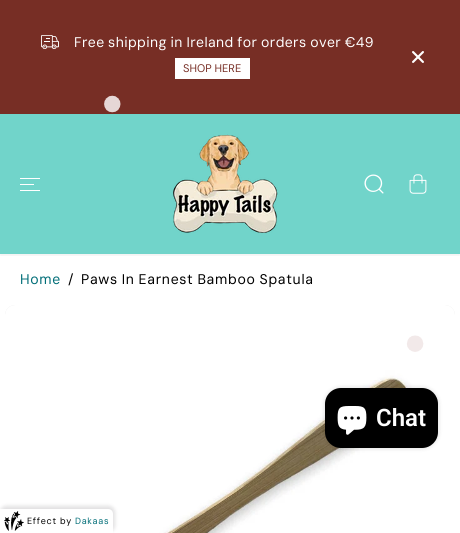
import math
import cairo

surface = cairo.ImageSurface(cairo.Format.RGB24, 460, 533)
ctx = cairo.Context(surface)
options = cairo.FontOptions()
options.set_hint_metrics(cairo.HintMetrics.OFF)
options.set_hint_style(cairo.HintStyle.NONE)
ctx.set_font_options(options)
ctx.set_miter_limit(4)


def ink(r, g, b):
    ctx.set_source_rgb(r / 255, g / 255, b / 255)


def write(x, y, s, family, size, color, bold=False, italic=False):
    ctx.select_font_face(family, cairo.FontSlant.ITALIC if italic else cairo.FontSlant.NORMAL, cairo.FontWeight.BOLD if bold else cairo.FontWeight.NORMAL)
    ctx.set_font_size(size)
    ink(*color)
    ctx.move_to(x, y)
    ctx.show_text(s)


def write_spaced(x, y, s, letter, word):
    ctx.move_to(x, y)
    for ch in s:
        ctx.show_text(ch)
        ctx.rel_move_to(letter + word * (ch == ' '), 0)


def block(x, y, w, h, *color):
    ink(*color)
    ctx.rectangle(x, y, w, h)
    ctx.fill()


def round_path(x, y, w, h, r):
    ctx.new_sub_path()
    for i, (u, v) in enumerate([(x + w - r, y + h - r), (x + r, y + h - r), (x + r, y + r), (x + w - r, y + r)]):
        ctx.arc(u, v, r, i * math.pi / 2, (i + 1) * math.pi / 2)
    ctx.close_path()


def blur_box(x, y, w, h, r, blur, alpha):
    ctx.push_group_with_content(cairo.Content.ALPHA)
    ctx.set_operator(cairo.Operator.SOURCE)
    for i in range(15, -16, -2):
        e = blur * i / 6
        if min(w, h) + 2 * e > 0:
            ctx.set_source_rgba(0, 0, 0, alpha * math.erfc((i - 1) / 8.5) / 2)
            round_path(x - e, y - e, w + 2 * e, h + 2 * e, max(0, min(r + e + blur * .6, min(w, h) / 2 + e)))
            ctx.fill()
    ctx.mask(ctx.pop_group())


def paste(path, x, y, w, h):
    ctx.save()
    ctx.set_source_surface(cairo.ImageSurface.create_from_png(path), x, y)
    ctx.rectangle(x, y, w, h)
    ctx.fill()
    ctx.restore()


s1 = dict(family="DM Sans", size=11, color=(119, 46, 37))
s2 = dict(family="Roboto SemiBold", size=24, color=(255, 255, 255))

ink(255, 255, 255)
ctx.paint()
block(0, 0, 460, 114, 119, 46, 37)
paste("pic1.png", 41, 35, 18, 14)
ctx.select_font_face("DM Sans")
ctx.set_font_size(14)
ink(255, 255, 255)
write_spaced(74, 47, "Free shipping in Ireland for orders over €49", 0.4, -0.5)
block(175, 58, 75, 21, 255, 255, 255)
write(183, 72, "SHOP HERE", **s1)
paste("pic2.png", 412, 51, 12, 12)
block(0, 114, 460, 140, 113, 212, 202)
ctx.save()
ctx.rectangle(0, 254, 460, 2)
ctx.clip()
ink(0, 0, 0)
blur_box(0, 116, 460, 140, 0, 1, 0.05)
ctx.restore()
block(20, 184, 14, 1, 255, 255, 255)
block(20, 178, 20, 1, 255, 255, 255)
block(20, 190, 20, 1, 255, 255, 255)
paste("pic3.png", 173, 134, 105, 99)
paste("pic4.png", 364, 174, 20, 20)
paste("pic5.png", 409, 174, 18, 20)
ctx.set_font_size(14)
ink(0, 109, 119)
write_spaced(20, 284, "Home", 0.7, 0)
ink(0, 0, 0)
write_spaced(68, 284, "/", 0.7, 0)
write_spaced(81, 284, "Paws In Earnest Bamboo Spatula", 0.7, -0.5)
ink(238, 238, 238)
round_path(5, 305, 450, 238, 10)
ctx.fill()
paste("pic6.png", 5, 305, 450, 228)
paste("pic7.png", 104, 95, 320, 257)
ink(0, 0, 0)
blur_box(325, 388, 113, 60, 16, 2.5, 0.15)
ink(0, 0, 0)
round_path(325, 388, 113, 60, 16)
ctx.fill()
paste("pic8.png", 337, 406, 30, 29)
write(376, 426, "Chat", **s2)
ink(64, 60, 67)
blur_box(0, 506, 115, 26, 6, 2, 0.16)
ink(255, 255, 255)
ctx.new_path()
ctx.move_to(0, 509)
ctx.line_to(108, 509)
ctx.curve_to(111, 509, 113, 511, 113, 514)
ctx.line_to(113, 533)
ctx.line_to(0, 533)
ctx.close_path()
ctx.fill()
paste("pic9.png", 4, 511, 20, 20)
ctx.select_font_face("DM Sans")
ctx.set_font_size(9)
ink(0, 0, 0)
write_spaced(27, 524, "Effect by", 0.7, 0)
ink(0, 109, 119)
write_spaced(75, 524, "Dakaas", 0.7, 0)
surface.write_to_png("screenshot.png")
